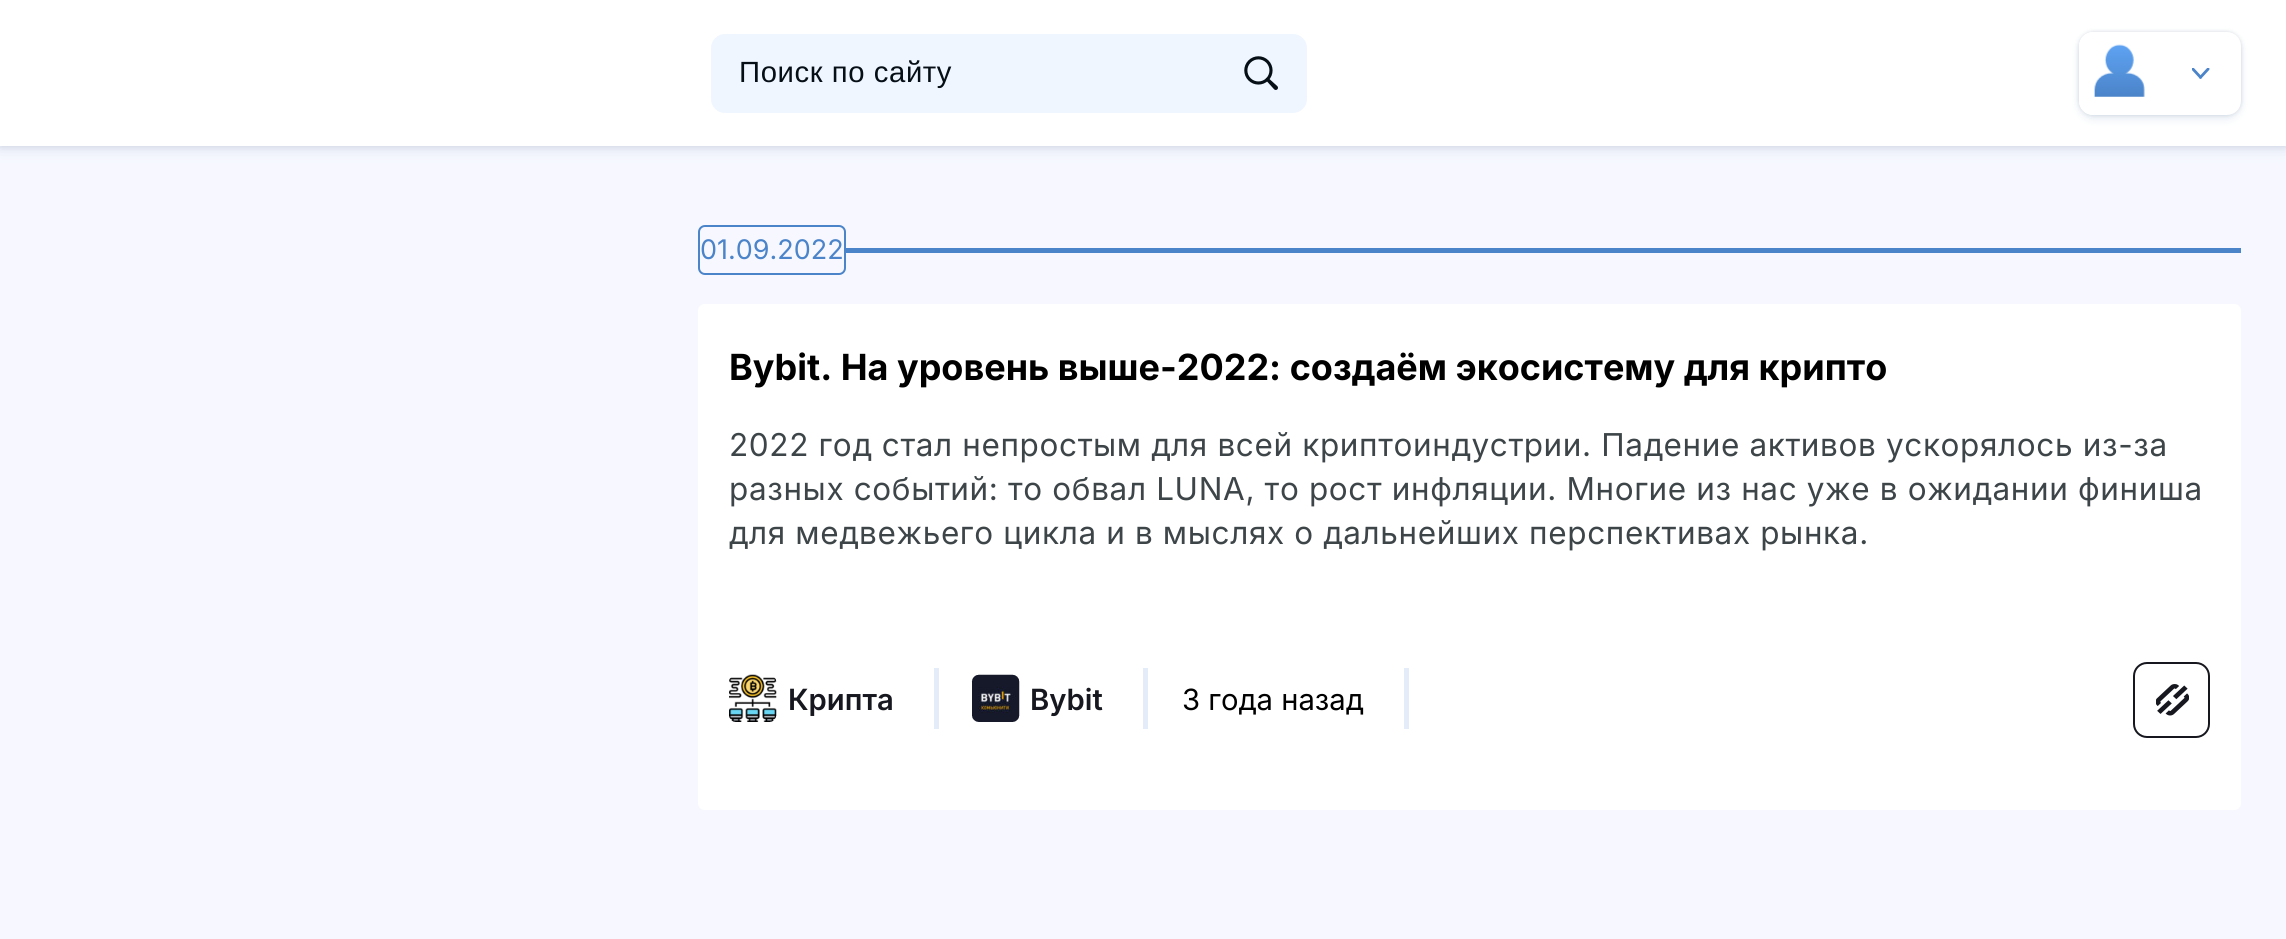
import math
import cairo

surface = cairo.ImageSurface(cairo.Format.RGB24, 2286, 939)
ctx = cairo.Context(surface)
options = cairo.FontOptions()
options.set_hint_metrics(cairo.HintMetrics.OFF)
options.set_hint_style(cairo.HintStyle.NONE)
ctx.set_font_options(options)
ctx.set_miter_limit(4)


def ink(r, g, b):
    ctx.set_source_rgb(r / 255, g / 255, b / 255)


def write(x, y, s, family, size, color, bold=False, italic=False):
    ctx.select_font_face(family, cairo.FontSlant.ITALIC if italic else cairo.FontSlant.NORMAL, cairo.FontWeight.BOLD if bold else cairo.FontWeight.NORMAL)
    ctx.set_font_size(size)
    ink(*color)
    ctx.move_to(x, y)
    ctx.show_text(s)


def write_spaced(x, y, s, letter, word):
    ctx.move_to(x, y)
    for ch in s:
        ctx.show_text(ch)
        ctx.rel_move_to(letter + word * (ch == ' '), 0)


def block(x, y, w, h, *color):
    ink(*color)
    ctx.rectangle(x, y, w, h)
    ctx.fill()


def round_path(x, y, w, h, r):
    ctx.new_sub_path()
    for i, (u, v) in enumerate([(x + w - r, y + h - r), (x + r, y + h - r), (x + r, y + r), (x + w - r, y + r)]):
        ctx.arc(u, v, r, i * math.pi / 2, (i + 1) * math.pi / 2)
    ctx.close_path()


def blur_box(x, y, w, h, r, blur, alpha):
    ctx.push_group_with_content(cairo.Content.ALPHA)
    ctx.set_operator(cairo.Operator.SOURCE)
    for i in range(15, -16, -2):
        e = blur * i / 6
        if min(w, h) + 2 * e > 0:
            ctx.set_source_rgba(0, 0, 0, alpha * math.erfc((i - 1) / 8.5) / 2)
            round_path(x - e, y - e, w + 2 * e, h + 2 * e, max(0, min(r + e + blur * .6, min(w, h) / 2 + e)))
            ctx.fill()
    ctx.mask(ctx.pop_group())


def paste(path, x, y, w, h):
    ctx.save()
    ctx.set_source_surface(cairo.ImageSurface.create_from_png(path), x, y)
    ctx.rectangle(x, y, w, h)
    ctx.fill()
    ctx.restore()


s1 = dict(family="Inter", size=27, color=(75, 132, 201))
s2 = dict(family="Inter", size=36, color=(0, 0, 0), bold=True)
s3 = dict(family="Inter SemiBold", size=29.25, color=(23, 24, 31))
s4 = dict(family="Inter", size=29.25, color=(0, 0, 0))

ink(247, 248, 255)
ctx.paint()
ink(92, 133, 182)
blur_box(0, 0, 2286, 146, 0, 9, 0.15)
ink(61, 80, 108)
blur_box(0, 0, 2286, 146, 0, 4.5, 0.2)
block(0, 0, 2286, 146, 255, 255, 255)
ink(240, 246, 255)
round_path(711, 34, 596, 79, 14)
ctx.fill()
paste("pic1.png", 1244, 56, 34, 34)
ctx.select_font_face("Liberation Sans")
ctx.set_font_size(29.25)
ink(6, 14, 22)
write_spaced(739, 82, "Поиск по сайту", 0.6, 0)
ink(92, 133, 182)
blur_box(2079, 36, 162, 83, 14, 4.5, 0.15)
ink(61, 80, 108)
blur_box(2079, 32, 162, 83, 14, 2, 0.2)
ink(255, 255, 255)
round_path(2079, 32, 162, 83, 14)
ctx.fill()
ctx.new_path()
ctx.move_to(2093, 32)
ctx.line_to(2160, 32)
ctx.line_to(2160, 115)
ctx.line_to(2093, 115)
ctx.curve_to(2085.5, 115, 2079, 108.5, 2079, 101)
ctx.line_to(2079, 46)
ctx.curve_to(2079, 38.5, 2085.5, 32, 2093, 32)
ctx.close_path()
ctx.fill()
paste("pic2.png", 2094, 44, 51, 53)
paste("pic3.png", 2192, 68, 18, 11)
round_path(699, 226, 146, 48, 6)
ink(75, 132, 201)
ctx.stroke()
write(700, 259, "01.09.2022", **s1)
block(846, 248, 1395, 5, 75, 132, 201)
ink(255, 255, 255)
round_path(698, 304, 1543, 506, 7)
ctx.fill()
write(729, 380, "Bybit. На уровень выше-2022: создаём экосистему для крипто", **s2)
ctx.select_font_face("Inter")
ctx.set_font_size(31.5)
ink(61, 69, 72)
write_spaced(729, 456, "2022 год стал непростым для всей криптоиндустрии. Падение активов ускорялось из-за", 0.63, 0)
write_spaced(729, 500, "разных событий: то обвал LUNA, то рост инфляции. Многие из нас уже в ожидании финиша", 0.63, 0)
write_spaced(729, 544, "для медвежьего цикла и в мыслях о дальнейших перспективах рынка.", 0.63, 0)
paste("pic4.png", 729, 674, 48, 48)
write(788, 710, "Крипта", **s3)
block(934, 668, 5, 61, 228, 236, 250)
paste("pic5.png", 971, 674, 49, 48)
write(1030, 710, "Bybit", **s3)
block(1143, 668, 5, 61, 228, 236, 250)
write(1182, 710, "3 года назад", **s4)
block(1404, 668, 5, 61, 228, 236, 250)
paste("pic6.png", 2156, 684, 33, 32)
round_path(2134, 663, 75, 74, 13)
ink(23, 24, 31)
ctx.stroke()
surface.write_to_png("screenshot.png")
